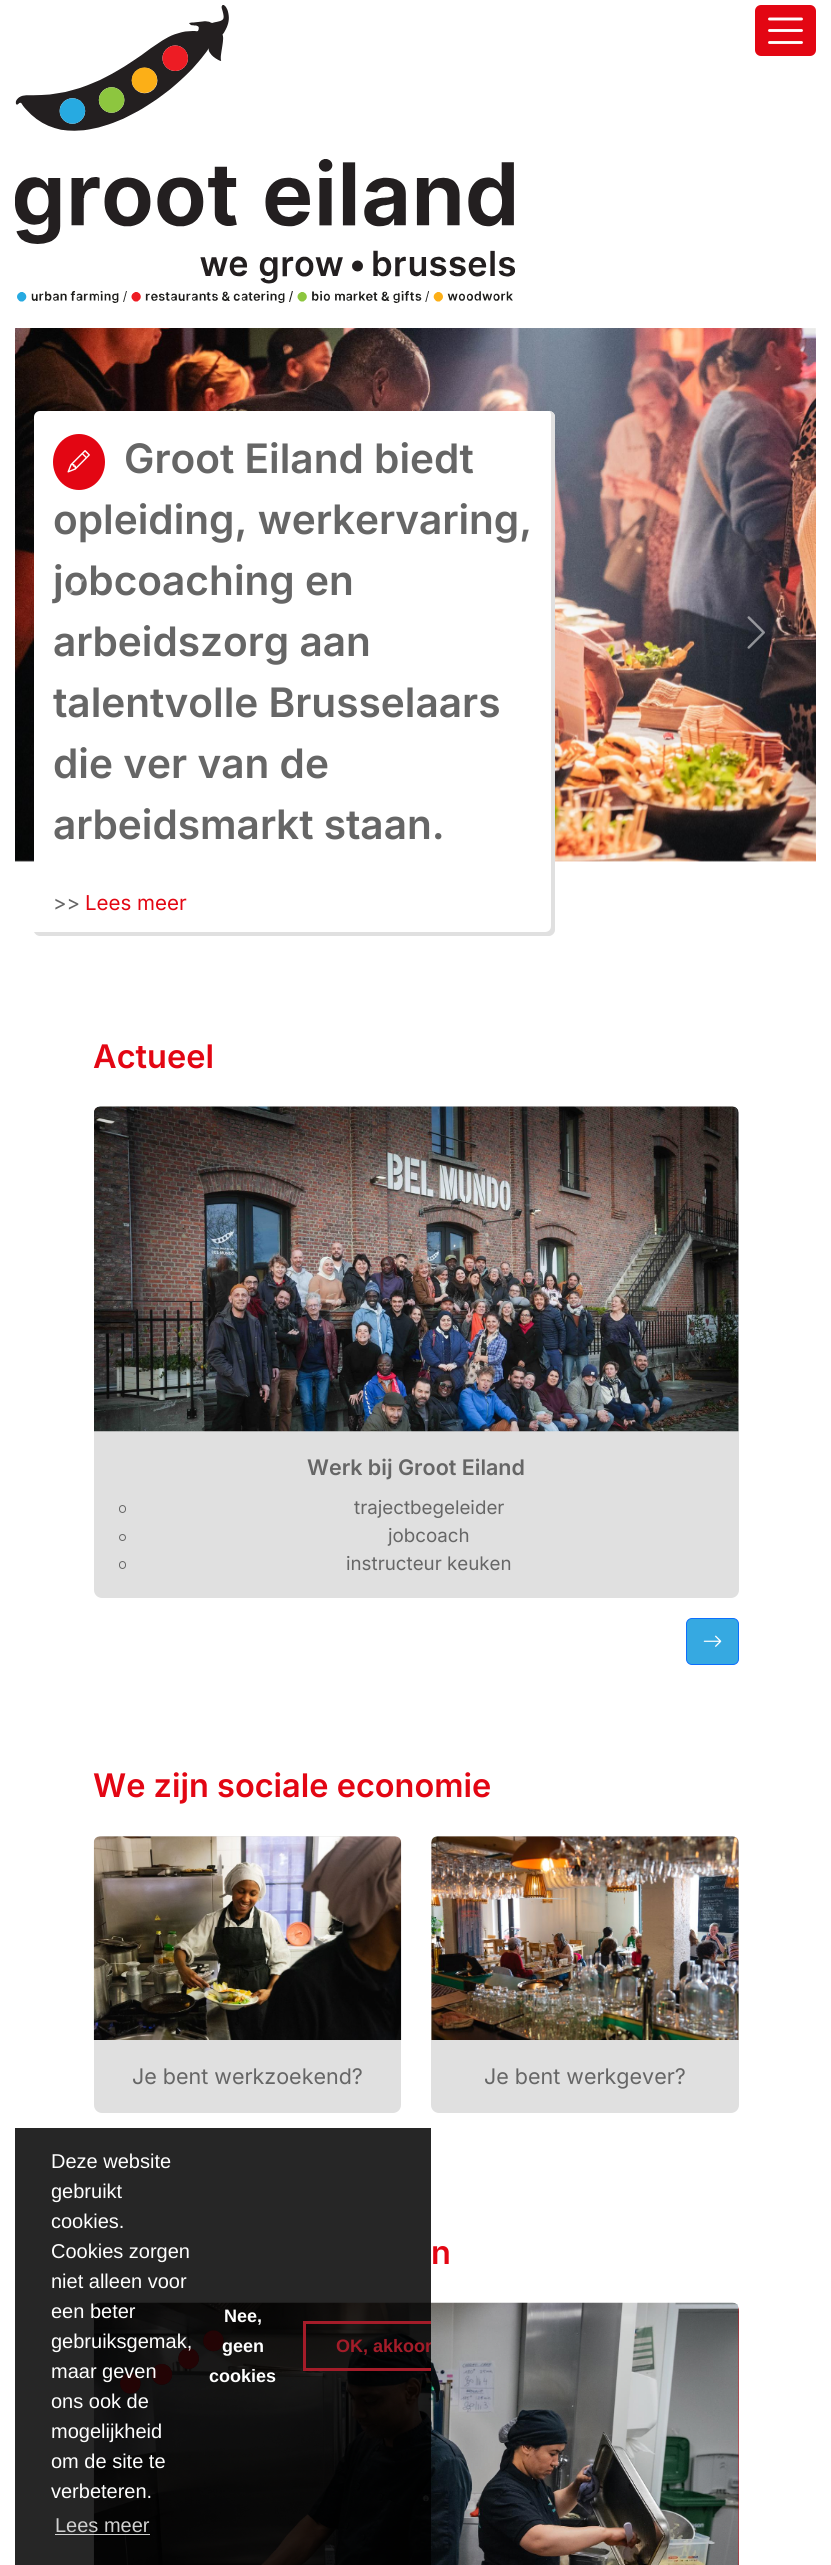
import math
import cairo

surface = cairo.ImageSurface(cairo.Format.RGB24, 831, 2565)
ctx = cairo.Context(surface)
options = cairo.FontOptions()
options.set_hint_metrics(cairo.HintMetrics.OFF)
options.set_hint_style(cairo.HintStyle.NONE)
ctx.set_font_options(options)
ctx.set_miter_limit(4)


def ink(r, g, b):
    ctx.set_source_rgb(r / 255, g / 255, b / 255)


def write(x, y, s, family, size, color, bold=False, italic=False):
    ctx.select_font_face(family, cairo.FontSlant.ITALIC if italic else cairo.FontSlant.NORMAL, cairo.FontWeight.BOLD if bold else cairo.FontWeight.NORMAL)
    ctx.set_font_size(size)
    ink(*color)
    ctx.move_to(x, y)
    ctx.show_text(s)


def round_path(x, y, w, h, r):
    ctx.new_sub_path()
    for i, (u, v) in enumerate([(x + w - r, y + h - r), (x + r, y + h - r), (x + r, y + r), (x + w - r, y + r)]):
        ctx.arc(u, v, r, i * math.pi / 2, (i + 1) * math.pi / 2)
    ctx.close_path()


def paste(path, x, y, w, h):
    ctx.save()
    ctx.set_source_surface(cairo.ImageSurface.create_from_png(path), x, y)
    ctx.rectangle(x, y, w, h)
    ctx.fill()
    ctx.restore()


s1 = dict(family="Inter SemiBold", size=40.6, color=(102, 102, 102))
s2 = dict(family="Inter", size=20.5, color=(102, 102, 102))
s3 = dict(family="Inter", size=20.5, color=(227, 6, 19))
s4 = dict(family="Inter SemiBold", size=32.5, color=(227, 6, 19))
s5 = dict(family="Inter SemiBold", size=21.5, color=(102, 102, 102))
s6 = dict(family="Inter", size=18.75, color=(102, 102, 102))
s7 = dict(family="Inter", size=21.5, color=(102, 102, 102))
s8 = dict(family="Liberation Sans", size=20, color=(255, 255, 255))
s9 = dict(family="Liberation Sans", size=20, color=(208, 208, 208))
s10 = dict(family="Liberation Sans", size=18, color=(255, 255, 255), bold=True)
s11 = dict(family="Liberation Sans", size=18, color=(164, 28, 41), bold=True)

ink(255, 255, 255)
ctx.paint()
paste("pic1.png", 15, 5, 500, 298)
ink(227, 6, 19)
round_path(755, 5, 61, 51, 6)
ctx.fill()
ctx.new_path()
ctx.move_to(769.5, 19)
ctx.line_to(801.5, 19)
ctx.move_to(769.5, 30.5)
ctx.line_to(801.5, 30.5)
ctx.move_to(769.5, 42.5)
ctx.line_to(801.5, 42.5)
ink(255, 255, 255)
ctx.set_line_width(2.9)
ctx.set_line_cap(cairo.LineCap.ROUND)
ctx.stroke()
paste("pic2.png", 15, 328, 801, 534)
round_path(34, 411, 521, 525, 6)
ctx.fill()
ink(224, 224, 224)
ctx.new_path()
ctx.move_to(34, 932)
ctx.curve_to(35, 934, 37, 936, 40, 936)
ctx.line_to(549, 936)
ctx.curve_to(552, 936, 555, 933, 555, 930)
ctx.line_to(555, 417)
ctx.curve_to(555, 414, 553, 412, 550, 411)
ctx.line_to(551, 414)
ctx.line_to(551, 926)
ctx.curve_to(551, 930, 548, 932, 545, 932)
ctx.close_path()
ctx.fill()
ink(227, 6, 19)
ctx.new_path()
ctx.move_to(79, 434)
ctx.curve_to(93.5, 434, 105, 446.5, 105, 462)
ctx.curve_to(105, 477.5, 93.5, 490, 79, 490)
ctx.curve_to(64.5, 490, 53, 477.5, 53, 462)
ctx.curve_to(53, 446.5, 64.5, 434, 79, 434)
ctx.close_path()
ctx.fill()
paste("pic3.png", 67, 450, 23, 23)
write(124, 473, "Groot Eiland biedt", **s1)
write(53, 534, "opleiding, werkervaring,", **s1)
write(53, 595, "jobcoaching en", **s1)
write(53, 656, "arbeidszorg aan", **s1)
write(53, 717, "talentvolle Brusselaars", **s1)
write(53, 778, "die ver van de", **s1)
write(53, 839, "arbeidsmarkt staan.", **s1)
write(53, 910, ">>", **s2)
write(85, 910, "Lees meer", **s3)
paste("pic4.png", 68, 578, 16, 16)
paste("pic5.png", 747, 616, 18, 33)
write(93, 1068, "Actueel", **s4)
ink(224, 224, 224)
round_path(94, 1106, 645, 492, 8)
ctx.fill()
paste("pic6.png", 94, 1106, 645, 326)
write(307, 1475, "Werk bij Groot Eiland", **s5)
round_path(119.5, 1505.5, 6, 7, 3)
ctx.set_line_width(1)
ctx.set_line_cap(cairo.LineCap.BUTT)
ctx.stroke()
write(354, 1514, "trajectbegeleider", **s6)
ctx.new_path()
ctx.arc(122.5, 1537.5, 3, 0, 2 * math.pi)
ctx.stroke()
write(388, 1542, "jobcoach", **s6)
round_path(119.5, 1561.5, 6, 7, 3)
ctx.stroke()
write(346, 1570, "instructeur keuken", **s6)
ink(54, 169, 225)
round_path(686.5, 1618.5, 52, 46, 5.5)
ctx.fill_preserve()
ink(13, 110, 253)
ctx.stroke()
paste("pic7.png", 703, 1635, 19, 12)
write(93, 1797, "We zijn sociale economie", **s4)
ink(224, 224, 224)
round_path(94, 1836, 307, 277, 8)
ctx.fill()
paste("pic8.png", 93, 1836, 309, 204)
write(132, 2084, "Je bent werkzoekend?", **s7)
ink(224, 224, 224)
round_path(431, 1836, 308, 277, 8)
ctx.fill()
paste("pic9.png", 431, 1836, 308, 204)
write(484, 2084, "Je bent werkgever?", **s7)
ink(227, 6, 19)
round_path(94, 2303, 645, 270, 8)
ctx.fill()
paste("pic10.png", 93, 2302, 646, 263)
paste("pic11.png", 120, 2330, 104, 64)
ctx.set_source_rgba(0, 0, 0, 0.85)
ctx.rectangle(15, 2128, 416, 437)
ctx.fill()
write(51, 2168, "Deze website", **s8)
write(51, 2198, "gebruikt", **s8)
write(51, 2228, "cookies.", **s8)
write(51, 2258, "Cookies zorgen", **s8)
write(51, 2288, "niet alleen voor", **s8)
write(51, 2318, "een beter", **s8)
write(51, 2348, "gebruiksgemak,", **s8)
write(51, 2378, "maar geven", **s8)
write(51, 2408, "ons ook de", **s8)
write(51, 2438, "mogelijkheid", **s8)
write(51, 2468, "om de site te", **s8)
write(51, 2498, "verbeteren.", **s8)
write(55, 2532, "Lees meer", **s9)
ctx.set_source_rgba(1, 1, 1, 0.8)
ctx.rectangle(55, 2534, 95, 1)
ctx.fill()
write(224, 2322, "Nee,", **s10)
write(222, 2352, "geen", **s10)
write(209, 2382, "cookies", **s10)
ctx.save()
ctx.rectangle(15, 2128, 416, 437)
ctx.clip()
ctx.rectangle(304.5, 2322.5, 172, 47)
ink(164, 28, 41)
ctx.set_line_width(3)
ctx.stroke()
write(336, 2352, "OK, akkoor", **s11)
ctx.restore()
write(431, 2264, "n", **s4)
surface.write_to_png("screenshot.png")
